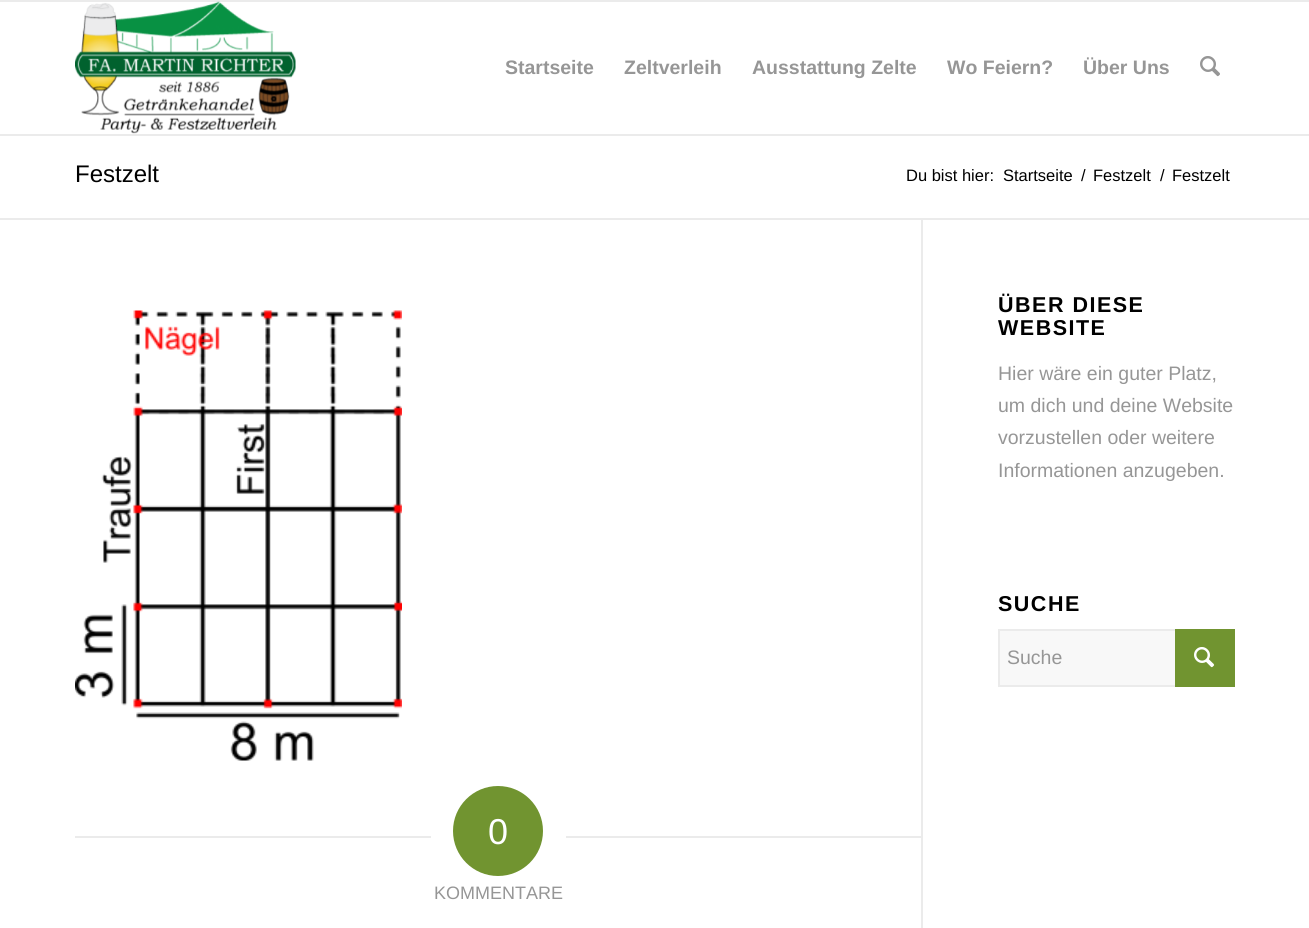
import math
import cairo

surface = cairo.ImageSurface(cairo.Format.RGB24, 1309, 928)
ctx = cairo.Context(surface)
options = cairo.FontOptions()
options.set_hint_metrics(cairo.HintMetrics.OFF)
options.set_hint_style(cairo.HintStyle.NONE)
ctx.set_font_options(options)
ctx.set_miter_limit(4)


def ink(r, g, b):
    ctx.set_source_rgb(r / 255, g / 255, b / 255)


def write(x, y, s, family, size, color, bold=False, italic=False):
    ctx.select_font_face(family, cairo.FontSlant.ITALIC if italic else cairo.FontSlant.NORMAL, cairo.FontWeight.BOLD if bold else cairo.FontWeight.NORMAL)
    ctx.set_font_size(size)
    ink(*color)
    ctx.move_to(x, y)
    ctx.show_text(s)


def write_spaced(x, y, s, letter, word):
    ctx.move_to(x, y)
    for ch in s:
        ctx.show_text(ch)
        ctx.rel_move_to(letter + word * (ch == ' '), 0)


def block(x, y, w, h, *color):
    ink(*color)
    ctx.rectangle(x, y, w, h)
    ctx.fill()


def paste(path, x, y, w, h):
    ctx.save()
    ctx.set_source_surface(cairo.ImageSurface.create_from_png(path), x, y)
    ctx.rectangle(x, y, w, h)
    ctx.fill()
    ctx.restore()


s1 = dict(family="Liberation Sans", size=19.5, color=(150, 150, 150), bold=True)
s2 = dict(family="Liberation Sans", size=24, color=(0, 0, 0))
s3 = dict(family="Liberation Sans", size=16.5, color=(0, 0, 0))
s4 = dict(family="Liberation Sans", size=19.5, color=(150, 150, 150))
s5 = dict(family="Liberation Sans", size=36, color=(255, 255, 255))
s6 = dict(family="Liberation Sans", size=18, color=(150, 150, 150))

ink(255, 255, 255)
ctx.paint()
block(0, 0, 1309, 2, 235, 235, 235)
block(0, 134, 1309, 2, 235, 235, 235)
paste("pic1.png", 75, 1, 221, 133)
write(505, 74, "Startseite", **s1)
write(624, 74, "Zeltverleih", **s1)
write(752, 74, "Ausstattung Zelte", **s1)
write(947, 74, "Wo Feiern?", **s1)
write(1083, 74, "Über Uns", **s1)
paste("pic2.png", 1200, 56, 20, 21)
write(75, 182, "Festzelt", **s2)
write(906, 181, "Du bist hier:", **s3)
write(1003, 181, "Startseite", **s3)
write(1081, 181, "/", **s3)
write(1093, 181, "Festzelt", **s3)
write(1160, 181, "/", **s3)
write(1172, 181, "Festzelt", **s3)
block(0, 218, 1309, 2, 235, 235, 235)
ctx.select_font_face("Liberation Sans", cairo.FontSlant.NORMAL, cairo.FontWeight.BOLD)
ctx.set_font_size(21.5)
ink(0, 0, 0)
write_spaced(998, 312, "ÜBER DIESE", 1.5, 0)
write_spaced(998, 335, "WEBSITE", 1.5, 0)
write(998, 380, "Hier wäre ein guter Platz,", **s4)
write(998, 412, "um dich und deine Website", **s4)
write(998, 444, "vorzustellen oder weitere", **s4)
write(998, 477, "Informationen anzugeben.", **s4)
ctx.select_font_face("Liberation Sans", cairo.FontSlant.NORMAL, cairo.FontWeight.BOLD)
ctx.set_font_size(21.5)
ink(0, 0, 0)
write_spaced(998, 611, "SUCHE", 1.5, 0)
block(1000, 631, 175, 54, 248, 248, 248)
ctx.rectangle(999, 630, 235, 56)
ink(235, 235, 235)
ctx.stroke()
write(1007, 664, "Suche", **s4)
block(1175, 629, 60, 58, 113, 148, 48)
paste("pic3.png", 1194, 647, 21, 21)
block(921, 219, 2, 709, 235, 235, 235)
paste("pic4.png", 75, 310, 327, 451)
block(75, 836, 356, 2, 235, 235, 235)
ink(113, 148, 48)
ctx.arc(498, 831, 45, 0, 2 * math.pi)
ctx.fill()
write(488, 844, "0", **s5)
block(566, 836, 355, 2, 235, 235, 235)
write(434, 899, "KOMMENTARE", **s6)
surface.write_to_png("screenshot.png")
